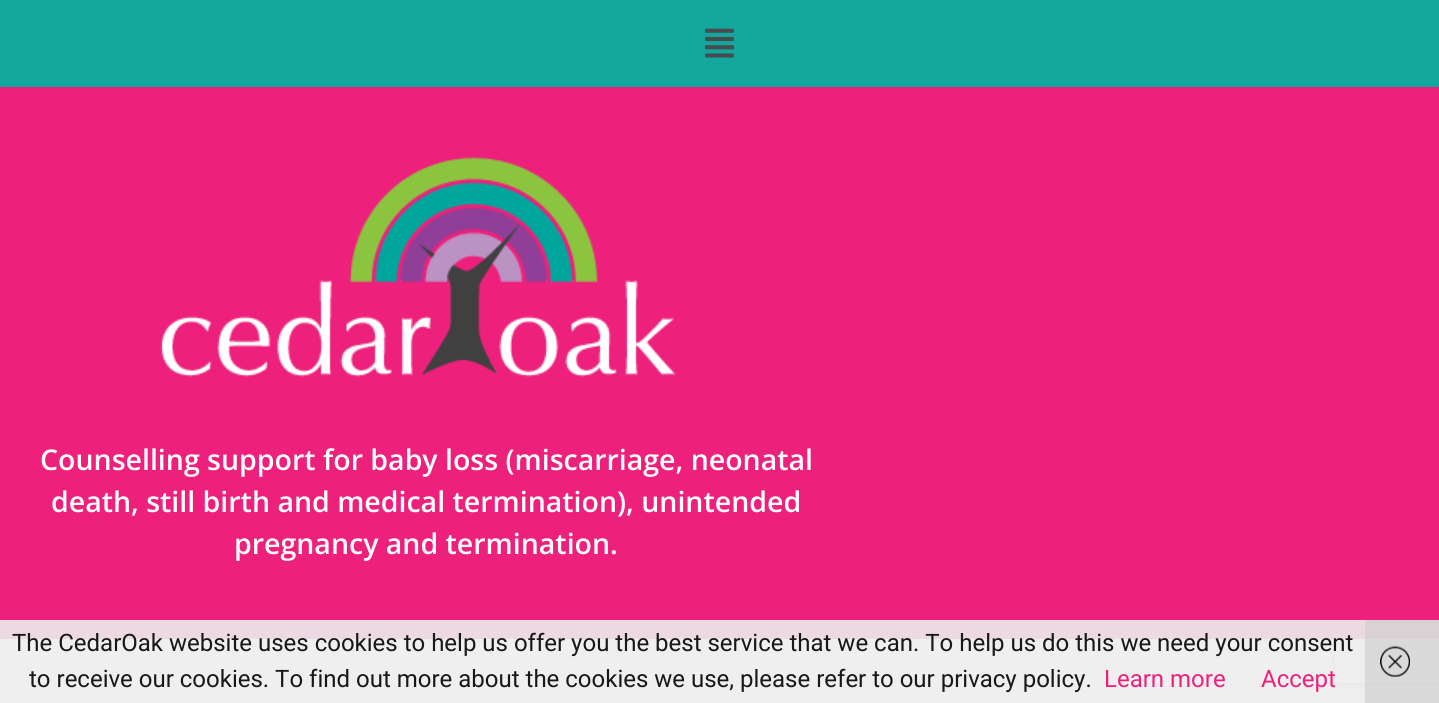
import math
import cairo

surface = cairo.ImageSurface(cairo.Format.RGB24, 1439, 703)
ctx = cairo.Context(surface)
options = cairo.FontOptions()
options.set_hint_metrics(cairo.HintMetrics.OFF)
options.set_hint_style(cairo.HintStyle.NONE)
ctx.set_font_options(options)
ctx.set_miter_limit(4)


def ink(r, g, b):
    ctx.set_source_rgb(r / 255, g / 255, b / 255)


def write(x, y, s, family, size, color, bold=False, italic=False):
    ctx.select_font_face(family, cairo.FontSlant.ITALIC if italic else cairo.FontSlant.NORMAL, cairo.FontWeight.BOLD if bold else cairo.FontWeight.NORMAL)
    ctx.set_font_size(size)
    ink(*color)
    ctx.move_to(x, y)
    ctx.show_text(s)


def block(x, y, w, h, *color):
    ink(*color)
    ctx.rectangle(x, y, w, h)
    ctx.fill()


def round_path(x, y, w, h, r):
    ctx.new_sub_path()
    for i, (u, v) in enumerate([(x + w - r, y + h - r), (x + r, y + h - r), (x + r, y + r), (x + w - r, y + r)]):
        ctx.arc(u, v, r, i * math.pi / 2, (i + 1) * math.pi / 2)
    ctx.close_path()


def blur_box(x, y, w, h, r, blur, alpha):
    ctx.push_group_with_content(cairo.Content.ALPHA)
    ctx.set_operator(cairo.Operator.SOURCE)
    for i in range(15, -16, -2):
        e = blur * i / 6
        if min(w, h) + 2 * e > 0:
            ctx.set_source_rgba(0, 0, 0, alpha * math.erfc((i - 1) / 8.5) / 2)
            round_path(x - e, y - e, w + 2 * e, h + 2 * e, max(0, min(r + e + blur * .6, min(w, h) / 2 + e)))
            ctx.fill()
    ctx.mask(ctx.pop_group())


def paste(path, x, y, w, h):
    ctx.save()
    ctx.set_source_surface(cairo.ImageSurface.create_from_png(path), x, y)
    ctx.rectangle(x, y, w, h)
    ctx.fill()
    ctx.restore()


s1 = dict(family="Open Sans SemiBold", size=28.5, color=(255, 255, 255))
s2 = dict(family="Roboto", size=24, color=(24, 24, 24))
s3 = dict(family="Roboto", size=24, color=(237, 33, 124))

ink(255, 255, 255)
ctx.paint()
block(0, 0, 1439, 87, 19, 168, 158)
paste("pic1.png", 705, 28, 29, 30)
ctx.save()
ctx.set_fill_rule(cairo.FillRule.EVEN_ODD)
ctx.new_path()
ctx.move_to(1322, 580)
ctx.line_to(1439, 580)
ctx.line_to(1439, 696)
ctx.line_to(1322, 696)
ctx.close_path()
ctx.move_to(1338, 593)
ctx.line_to(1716, 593)
ctx.curve_to(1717.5, 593, 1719, 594.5, 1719, 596)
ctx.line_to(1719, 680)
ctx.curve_to(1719, 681.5, 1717.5, 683, 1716, 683)
ctx.line_to(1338, 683)
ctx.curve_to(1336.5, 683, 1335, 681.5, 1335, 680)
ctx.line_to(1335, 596)
ctx.curve_to(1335, 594.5, 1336.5, 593, 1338, 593)
ctx.close_path()
ctx.clip()
ink(128, 128, 128)
blur_box(1335, 593, 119, 90, 3, 4, 1)
ctx.restore()
block(0, 87, 1439, 552, 237, 33, 124)
paste("pic2.png", 161, 157, 515, 220)
write(40, 470, "Counselling support for baby loss (miscarriage, neonatal", **s1)
write(51, 512, "death, still birth and medical termination), unintended", **s1)
write(234, 554, "pregnancy and termination.", **s1)
ctx.set_source_rgba(0.933, 0.933, 0.933, 0.9)
ctx.rectangle(0, 620, 1439, 83)
ctx.fill()
write(12, 651, "The CedarOak website uses cookies to help us offer you the best service that we can. To help us do this we need your consent", **s2)
write(29, 687, "to receive our cookies. To find out more about the cookies we use, please refer to our privacy policy.", **s2)
write(1104, 687, "Learn more", **s3)
write(1261, 687, "Accept", **s3)
ctx.set_source_rgba(0.8, 0.8, 0.8, 0.6)
ctx.rectangle(1365, 620, 74, 83)
ctx.fill()
paste("pic3.png", 1380, 645, 30, 32)
surface.write_to_png("screenshot.png")
